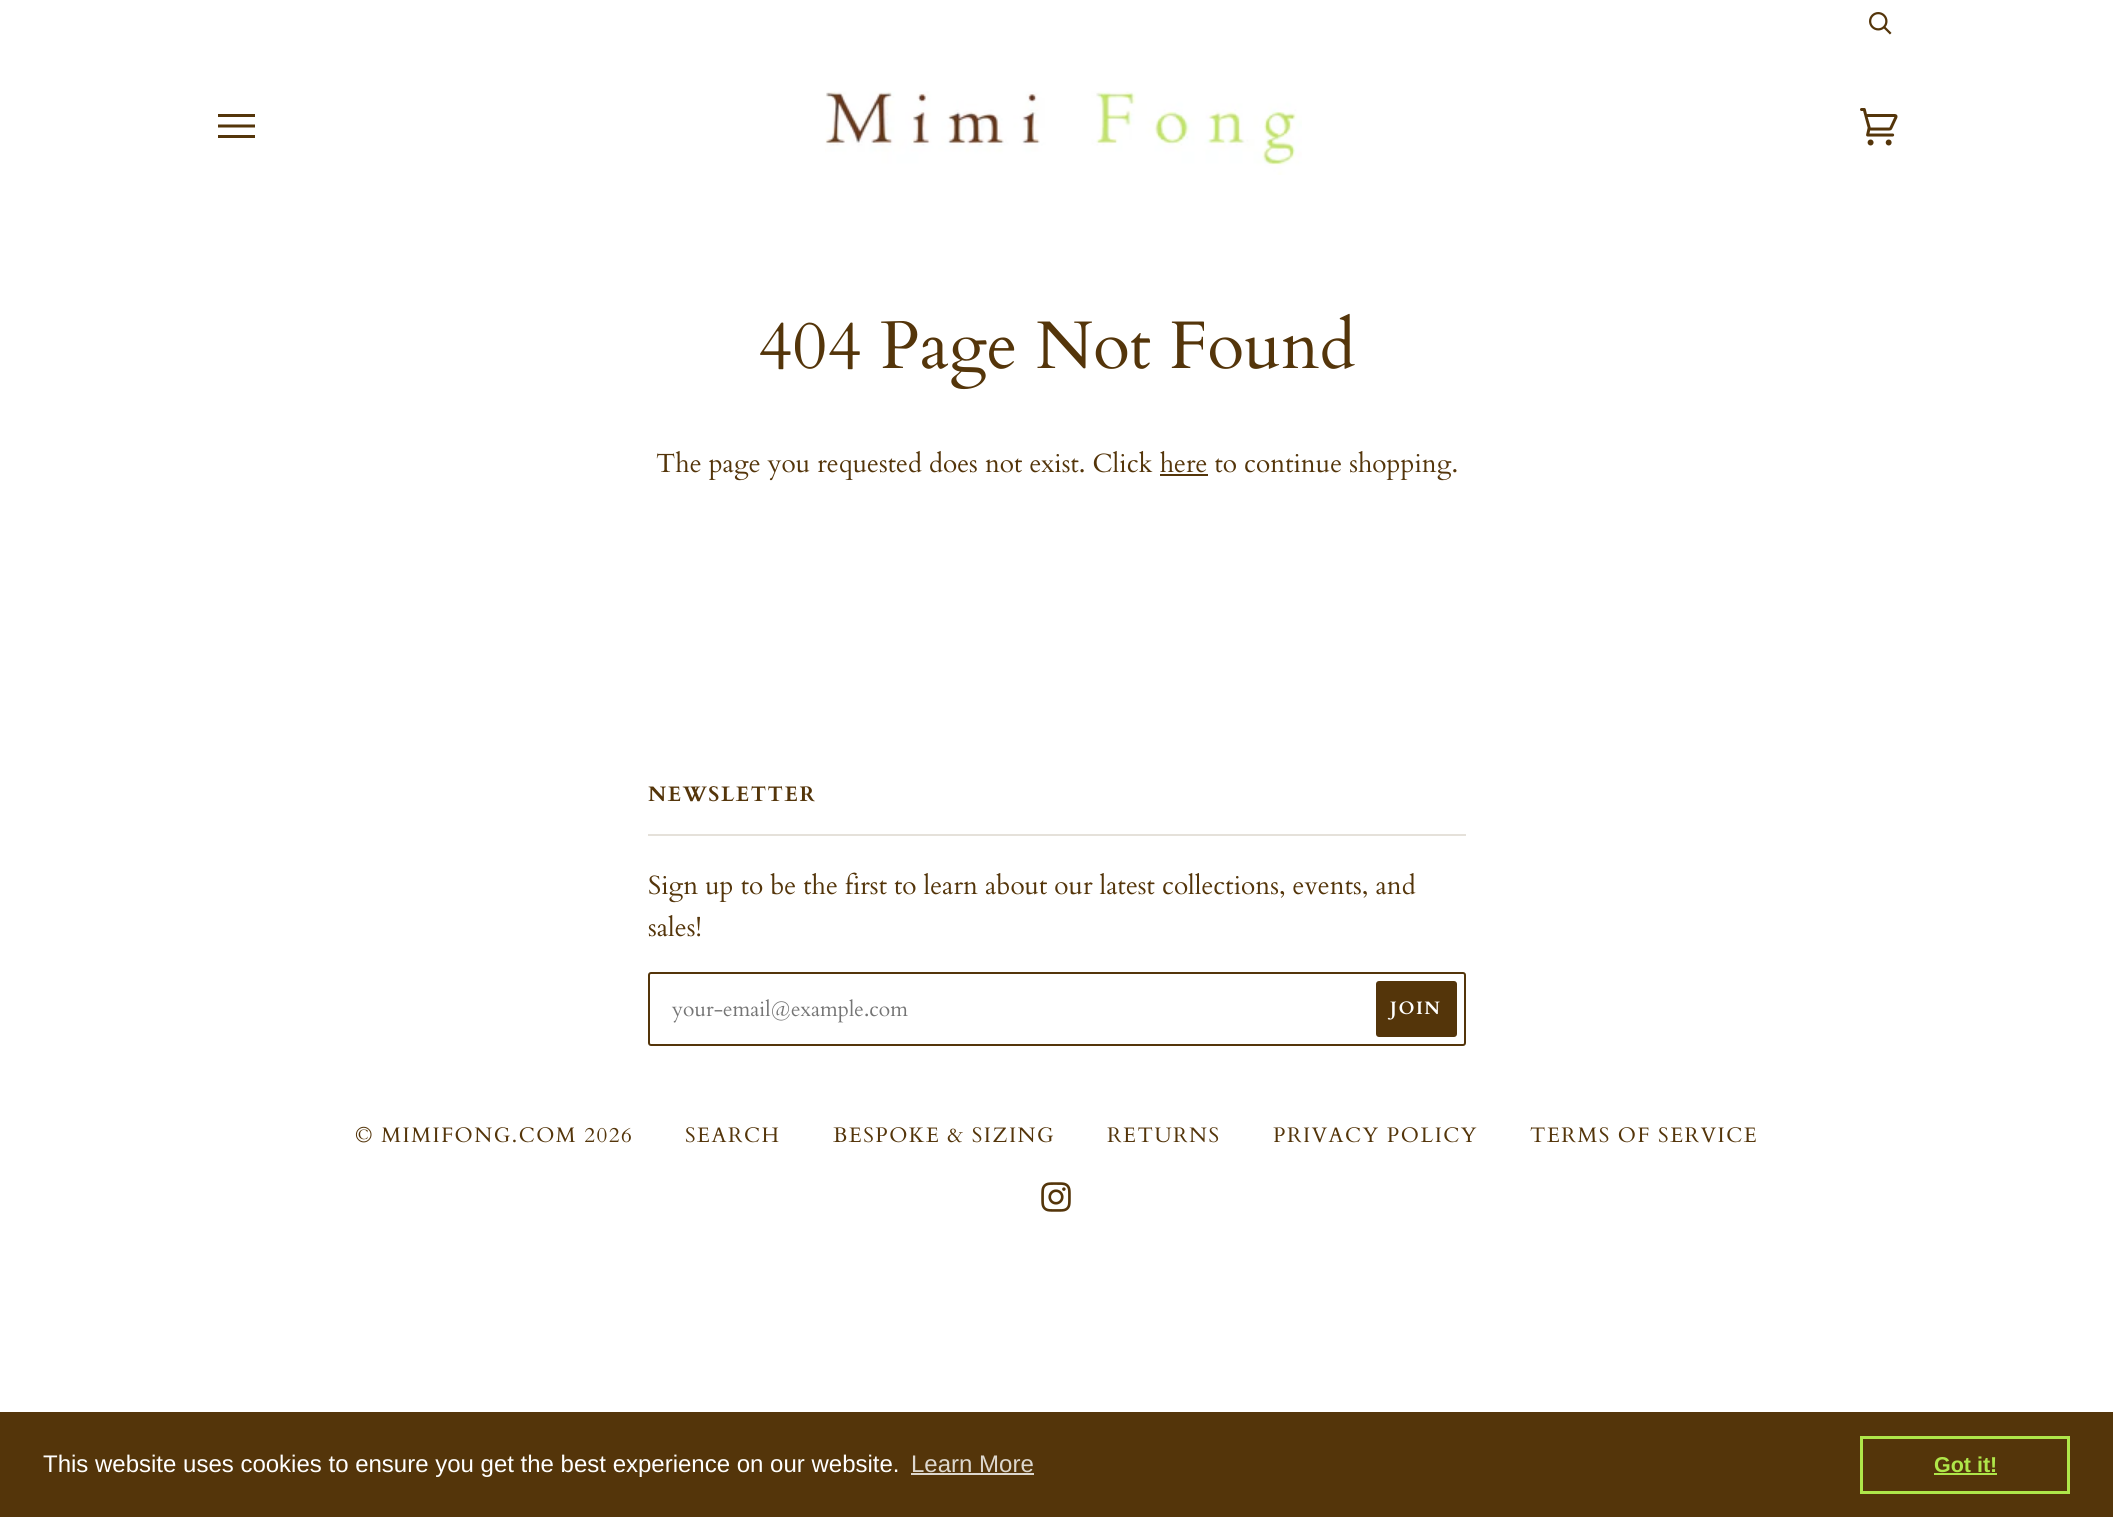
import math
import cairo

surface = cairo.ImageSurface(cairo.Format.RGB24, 2113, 1517)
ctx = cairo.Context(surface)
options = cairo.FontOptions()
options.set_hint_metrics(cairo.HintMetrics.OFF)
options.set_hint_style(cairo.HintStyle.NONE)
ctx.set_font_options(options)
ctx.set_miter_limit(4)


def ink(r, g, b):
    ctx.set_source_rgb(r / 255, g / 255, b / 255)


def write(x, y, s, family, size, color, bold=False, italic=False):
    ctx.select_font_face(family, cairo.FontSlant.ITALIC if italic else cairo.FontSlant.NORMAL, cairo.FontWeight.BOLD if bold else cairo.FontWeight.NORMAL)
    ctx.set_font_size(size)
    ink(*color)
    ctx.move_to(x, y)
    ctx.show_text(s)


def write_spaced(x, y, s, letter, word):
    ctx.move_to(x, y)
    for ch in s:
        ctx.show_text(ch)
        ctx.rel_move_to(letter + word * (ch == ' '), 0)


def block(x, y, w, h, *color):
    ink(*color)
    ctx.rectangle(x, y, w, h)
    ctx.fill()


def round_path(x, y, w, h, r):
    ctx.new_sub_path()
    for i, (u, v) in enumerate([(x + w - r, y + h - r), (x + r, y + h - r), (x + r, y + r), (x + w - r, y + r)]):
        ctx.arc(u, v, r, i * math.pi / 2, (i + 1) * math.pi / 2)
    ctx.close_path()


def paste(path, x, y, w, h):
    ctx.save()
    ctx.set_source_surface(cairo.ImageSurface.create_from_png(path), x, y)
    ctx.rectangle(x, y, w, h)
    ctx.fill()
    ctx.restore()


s1 = dict(family="Cardo", size=67.5, color=(84, 53, 10))
s2 = dict(family="Cardo", size=26.25, color=(84, 53, 10))
s3 = dict(family="Cardo", size=21, color=(117, 117, 117))
s4 = dict(family="Liberation Sans", size=24, color=(255, 255, 255))
s5 = dict(family="Liberation Sans", size=24, color=(221, 215, 206))
s6 = dict(family="Liberation Sans", size=21.5, color=(175, 230, 73), bold=True)

ink(255, 255, 255)
ctx.paint()
paste("pic1.png", 1869, 12, 23, 23)
ctx.save()
ctx.rectangle(218, 108, 37, 38)
ctx.clip()
ink(84, 53, 10)
ctx.new_path()
ctx.move_to(217.5, 114)
ctx.line_to(255, 114)
ctx.line_to(255, 117)
ctx.line_to(217.5, 117)
ctx.close_path()
ctx.move_to(217.5, 124.5)
ctx.line_to(255, 124.5)
ctx.line_to(255, 127.5)
ctx.line_to(217.5, 127.5)
ctx.close_path()
ctx.move_to(217.5, 135)
ctx.line_to(255, 135)
ctx.line_to(255, 138)
ctx.line_to(217.5, 138)
ctx.close_path()
ctx.fill()
ctx.restore()
paste("pic2.png", 825, 91, 477, 84)
paste("pic3.png", 1860, 108, 38, 38)
write(758, 368, "404 Page Not Found", **s1)
write(656, 472, "The page you requested does not exist. Click here to continue shopping.", **s2)
block(1160, 474, 48, 2, 84, 53, 10)
ctx.select_font_face("Cardo", cairo.FontSlant.NORMAL, cairo.FontWeight.BOLD)
ctx.set_font_size(21)
write_spaced(648, 801, "NEWSLETTER", 1.5, 0)
block(648, 834, 818, 2, 229, 225, 218)
write(648, 894, "Sign up to be the first to learn about our latest collections, events, and", **s2)
write(648, 936, "sales!", **s2)
round_path(649, 973, 816, 72, 2)
ctx.stroke()
write(672, 1016, "your-email@example.com", **s3)
ink(84, 53, 10)
round_path(1376, 981, 81, 56, 3)
ctx.fill()
ctx.select_font_face("Cardo", cairo.FontSlant.NORMAL, cairo.FontWeight.BOLD)
ctx.set_font_size(18)
ink(255, 255, 255)
write_spaced(1390, 1014, "JOIN", 1.5, 0)
ctx.select_font_face("Cardo")
ctx.set_font_size(21)
ink(84, 53, 10)
write_spaced(355, 1142, "© MIMIFONG.COM 2026", 1.5, 0)
write_spaced(685, 1142, "SEARCH", 1.5, 0)
write_spaced(833, 1142, "BESPOKE & SIZING", 1.5, 0)
write_spaced(1107, 1142, "RETURNS", 1.5, 0)
write_spaced(1273, 1142, "PRIVACY POLICY", 1.5, 0)
write_spaced(1530, 1142, "TERMS OF SERVICE", 1.5, 0)
paste("pic4.png", 1041, 1182, 30, 30)
block(0, 1412, 2113, 105, 84, 53, 10)
write(43, 1472, "This website uses cookies to ensure you get the best experience on our website.", **s4)
write(911, 1472, "Learn More", **s5)
block(911, 1473, 123, 2, 221, 215, 206)
ctx.rectangle(1861.5, 1437.5, 207, 55)
ink(175, 230, 73)
ctx.set_line_width(3)
ctx.stroke()
write(1934, 1472, "Got it!", **s6)
block(1934, 1473, 63, 2, 175, 230, 73)
surface.write_to_png("screenshot.png")
